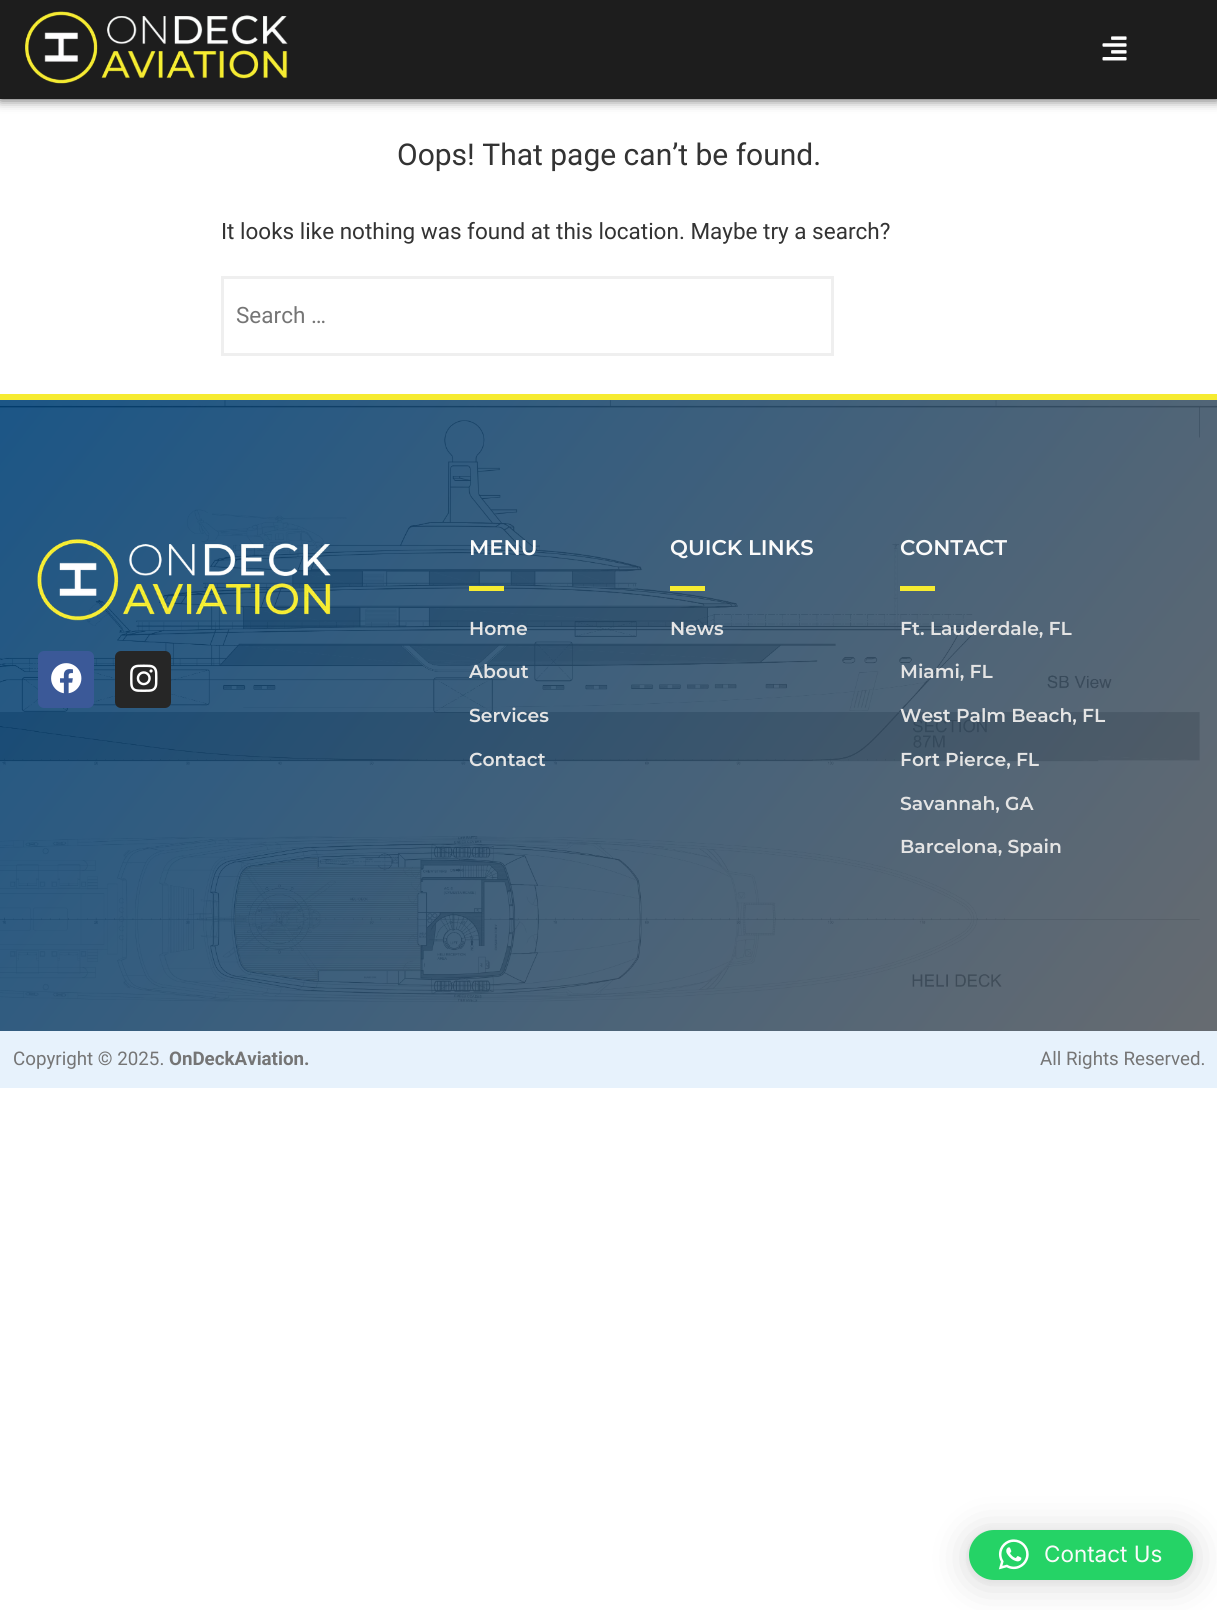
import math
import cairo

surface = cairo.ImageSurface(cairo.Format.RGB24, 1217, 1610)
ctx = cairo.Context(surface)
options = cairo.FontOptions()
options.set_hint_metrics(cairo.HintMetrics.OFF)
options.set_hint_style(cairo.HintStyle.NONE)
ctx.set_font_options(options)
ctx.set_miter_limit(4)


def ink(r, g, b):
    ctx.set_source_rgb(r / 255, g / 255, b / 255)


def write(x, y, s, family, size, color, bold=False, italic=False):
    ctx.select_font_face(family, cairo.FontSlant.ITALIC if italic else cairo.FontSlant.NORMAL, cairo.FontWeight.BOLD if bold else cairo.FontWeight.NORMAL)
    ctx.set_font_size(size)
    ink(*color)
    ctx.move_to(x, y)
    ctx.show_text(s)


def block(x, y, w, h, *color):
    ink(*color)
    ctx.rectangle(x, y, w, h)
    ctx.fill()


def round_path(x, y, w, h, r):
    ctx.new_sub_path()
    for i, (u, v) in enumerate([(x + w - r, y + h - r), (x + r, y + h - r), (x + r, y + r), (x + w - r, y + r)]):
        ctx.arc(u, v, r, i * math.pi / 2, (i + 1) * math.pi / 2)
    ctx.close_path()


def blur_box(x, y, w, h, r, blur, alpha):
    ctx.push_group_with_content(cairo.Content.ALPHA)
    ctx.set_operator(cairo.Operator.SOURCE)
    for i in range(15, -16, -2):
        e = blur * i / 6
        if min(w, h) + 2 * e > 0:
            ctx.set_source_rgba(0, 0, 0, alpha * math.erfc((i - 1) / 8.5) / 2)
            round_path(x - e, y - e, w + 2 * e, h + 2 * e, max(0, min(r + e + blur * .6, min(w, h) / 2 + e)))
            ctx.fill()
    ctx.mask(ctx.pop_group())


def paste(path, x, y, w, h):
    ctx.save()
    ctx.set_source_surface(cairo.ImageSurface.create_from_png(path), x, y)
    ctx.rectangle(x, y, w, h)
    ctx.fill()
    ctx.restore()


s1 = dict(family="Roboto", size=30, color=(51, 51, 51))
s2 = dict(family="Roboto", size=22.5, color=(51, 51, 51))
s3 = dict(family="Roboto", size=22.5, color=(117, 117, 117))
s4 = dict(family="Montserrat SemiBold", size=21.25, color=(250, 250, 250))
s5 = dict(family="Montserrat SemiBold", size=18.75, color=(228, 228, 228))
s6 = dict(family="Roboto", size=18.75, color=(117, 117, 117))
s7 = dict(family="Roboto", size=18.75, color=(117, 117, 117), bold=True)
s8 = dict(family="Inter", size=22.5, color=(250, 250, 250))

ink(255, 255, 255)
ctx.paint()
ink(0, 0, 0)
blur_box(0, 0, 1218, 99, 0, 6, 0.74)
block(0, 0, 1217, 99, 29, 29, 29)
paste("pic1.png", 25, 11, 263, 73)
paste("pic2.png", 1102, 36, 25, 25)
write(397, 165, "Oops! That page can’t be found.", **s1)
write(221, 239, "It looks like nothing was found at this location. Maybe try a search?", **s2)
ctx.rectangle(222.5, 277.5, 610, 77)
ink(239, 239, 239)
ctx.set_line_width(3)
ctx.stroke()
write(236, 323, "Search …", **s3)
paste("pic3.png", 0, 400, 1217, 603)
block(0, 394, 1217, 6, 246, 235, 49)
gradient = cairo.LinearGradient(78, 301, 1140, 1131)
gradient.add_color_stop_rgba(0, 0, 0.255, 0.467, 0.89)
gradient.add_color_stop_rgba(1, 0.329, 0.349, 0.373, 0.89)
ctx.set_source(gradient)
ctx.rectangle(0, 400, 1217, 631)
ctx.fill()
paste("pic4.png", 37, 539, 294, 82)
ink(59, 89, 152)
round_path(38, 651, 56, 57, 6)
ctx.fill()
paste("pic5.png", 51, 663, 31, 31)
ink(38, 38, 38)
round_path(115, 651, 56, 57, 6)
ctx.fill()
paste("pic6.png", 130, 664, 28, 28)
write(469, 555, "MENU", **s4)
block(469, 586, 35, 5, 246, 235, 49)
write(469, 635, "Home", **s5)
write(469, 678, "About", **s5)
write(469, 722, "Services", **s5)
write(469, 766, "Contact", **s5)
write(670, 555, "QUICK LINKS", **s4)
block(670, 586, 35, 5, 246, 235, 49)
write(670, 635, "News", **s5)
write(900, 555, "CONTACT", **s4)
block(900, 586, 35, 5, 246, 235, 49)
write(900, 635, "Ft. Lauderdale, FL", **s5)
write(900, 678, "Miami, FL", **s5)
write(900, 722, "West Palm Beach, FL", **s5)
write(900, 766, "Fort Pierce, FL", **s5)
write(900, 810, "Savannah, GA", **s5)
write(900, 853, "Barcelona, Spain", **s5)
block(0, 1031, 1217, 57, 231, 242, 252)
write(13, 1065, "Copyright © 2025.", **s6)
write(169, 1065, "OnDeckAviation.", **s7)
write(1040, 1065, "All Rights Reserved.", **s6)
ink(0, 0, 0)
blur_box(969, 1533, 224, 50, 25, 20, 0.16)
blur_box(969, 1531, 224, 50, 25, 4, 0.06)
ink(37, 211, 102)
round_path(969, 1530, 224, 50, 25)
ctx.fill()
paste("pic7.png", 998, 1539, 31, 31)
write(1044, 1562, "Contact Us", **s8)
surface.write_to_png("screenshot.png")
